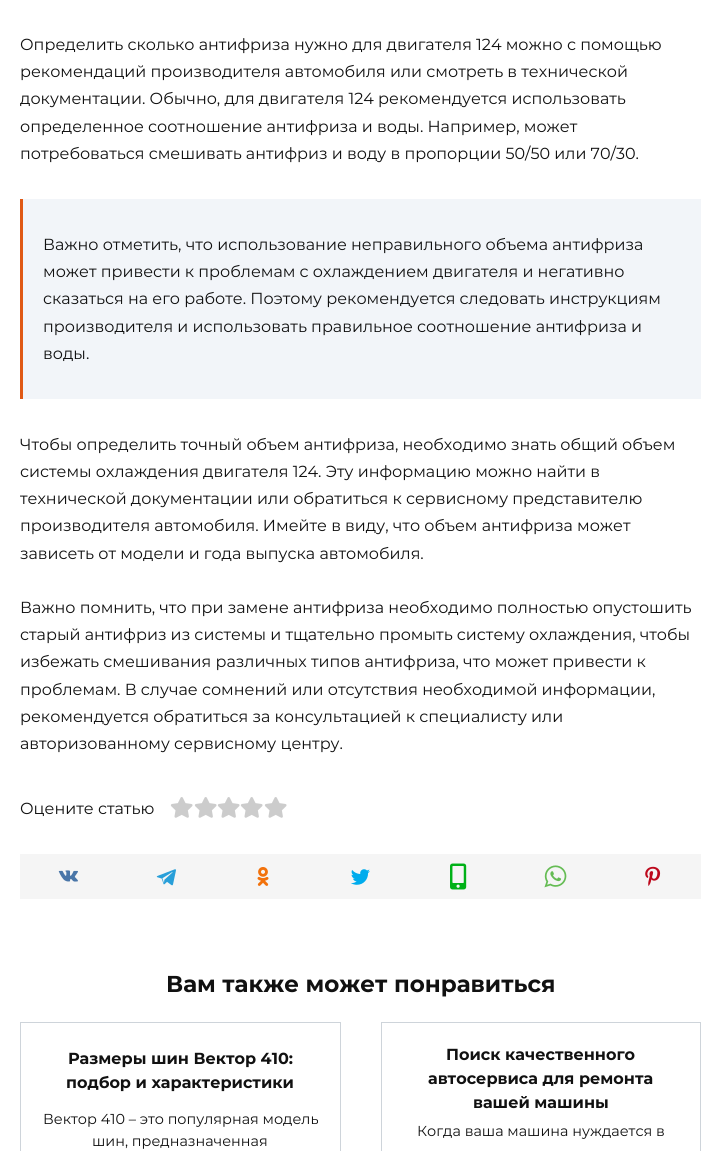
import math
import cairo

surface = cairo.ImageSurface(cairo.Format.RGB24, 721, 1151)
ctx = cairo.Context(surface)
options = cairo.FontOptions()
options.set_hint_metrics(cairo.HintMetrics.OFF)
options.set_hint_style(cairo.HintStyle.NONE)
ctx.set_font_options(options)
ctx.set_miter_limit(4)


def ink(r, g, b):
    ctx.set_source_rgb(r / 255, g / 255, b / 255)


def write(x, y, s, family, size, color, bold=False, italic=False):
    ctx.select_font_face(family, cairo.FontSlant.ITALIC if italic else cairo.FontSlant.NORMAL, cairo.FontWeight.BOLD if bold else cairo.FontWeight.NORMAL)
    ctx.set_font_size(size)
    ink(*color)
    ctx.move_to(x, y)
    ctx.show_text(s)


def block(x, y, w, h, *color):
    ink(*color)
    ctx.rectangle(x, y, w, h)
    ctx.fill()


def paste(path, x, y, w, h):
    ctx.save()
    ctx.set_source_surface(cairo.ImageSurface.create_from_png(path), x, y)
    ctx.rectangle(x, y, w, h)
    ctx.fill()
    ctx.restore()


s1 = dict(family="Montserrat", size=16, color=(17, 17, 17))
s2 = dict(family="Montserrat", size=23, color=(17, 17, 17), bold=True)
s3 = dict(family="Montserrat", size=16, color=(17, 17, 17), bold=True)
s4 = dict(family="Montserrat", size=14.4, color=(17, 17, 17))

ink(255, 255, 255)
ctx.paint()
write(20, 50, "Определить сколько антифриза нужно для двигателя 124 можно с помощью", **s1)
write(20, 77, "рекомендаций производителя автомобиля или смотреть в технической", **s1)
write(20, 104, "документации. Обычно, для двигателя 124 рекомендуется использовать", **s1)
write(20, 132, "определенное соотношение антифриза и воды. Например, может", **s1)
write(20, 159, "потребоваться смешивать антифриз и воду в пропорции 50/50 или 70/30.", **s1)
block(23, 199, 678, 200, 242, 245, 249)
block(20, 199, 3, 200, 224, 89, 21)
write(43, 250, "Важно отметить, что использование неправильного объема антифриза", **s1)
write(43, 277, "может привести к проблемам с охлаждением двигателя и негативно", **s1)
write(43, 304, "сказаться на его работе. Поэтому рекомендуется следовать инструкциям", **s1)
write(43, 332, "производителя и использовать правильное соотношение антифриза и", **s1)
write(43, 359, "воды.", **s1)
write(20, 450, "Чтобы определить точный объем антифриза, необходимо знать общий объем", **s1)
write(20, 477, "системы охлаждения двигателя 124. Эту информацию можно найти в", **s1)
write(20, 504, "технической документации или обратиться к сервисному представителю", **s1)
write(20, 531, "производителя автомобиля. Имейте в виду, что объем антифриза может", **s1)
write(20, 559, "зависеть от модели и года выпуска автомобиля.", **s1)
write(20, 613, "Важно помнить, что при замене антифриза необходимо полностью опустошить", **s1)
write(20, 640, "старый антифриз из системы и тщательно промыть систему охлаждения, чтобы", **s1)
write(20, 667, "избежать смешивания различных типов антифриза, что может привести к", **s1)
write(20, 695, "проблемам. В случае сомнений или отсутствия необходимой информации,", **s1)
write(20, 722, "рекомендуется обратиться за консультацией к специалисту или", **s1)
write(20, 749, "авторизованному сервисному центру.", **s1)
write(20, 814, "Оцените статью", **s1)
paste("pic1.png", 170, 797, 23, 21)
paste("pic1.png", 194, 797, 23, 21)
paste("pic1.png", 217, 797, 23, 21)
paste("pic1.png", 240, 797, 23, 21)
paste("pic1.png", 264, 797, 23, 21)
block(20, 854, 681, 45, 245, 245, 245)
paste("pic2.png", 58, 870, 20, 12)
paste("pic3.png", 156, 869, 20, 17)
paste("pic4.png", 257, 867, 12, 19)
paste("pic5.png", 351, 869, 19, 16)
paste("pic6.png", 450, 863, 17, 27)
paste("pic7.png", 544, 865, 23, 23)
paste("pic8.png", 645, 866, 16, 20)
write(166, 992, "Вам также может понравиться", **s2)
ctx.rectangle(20.5, 1022.5, 320, 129)
ink(206, 212, 218)
ctx.set_line_width(1)
ctx.stroke()
write(68, 1064, "Размеры шин Вектор 410:", **s3)
write(66, 1088, "подбор и характеристики", **s3)
write(43, 1124, "Вектор 410 – это популярная модель", **s4)
write(92, 1146, "шин, предназначенная", **s4)
ctx.rectangle(381.5, 1022.5, 319, 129)
ink(206, 212, 218)
ctx.stroke()
write(446, 1060, "Поиск качественного", **s3)
write(428, 1084, "автосервиса для ремонта", **s3)
write(473, 1108, "вашей машины", **s3)
write(417, 1136, "Когда ваша машина нуждается в", **s4)
surface.write_to_png("screenshot.png")
